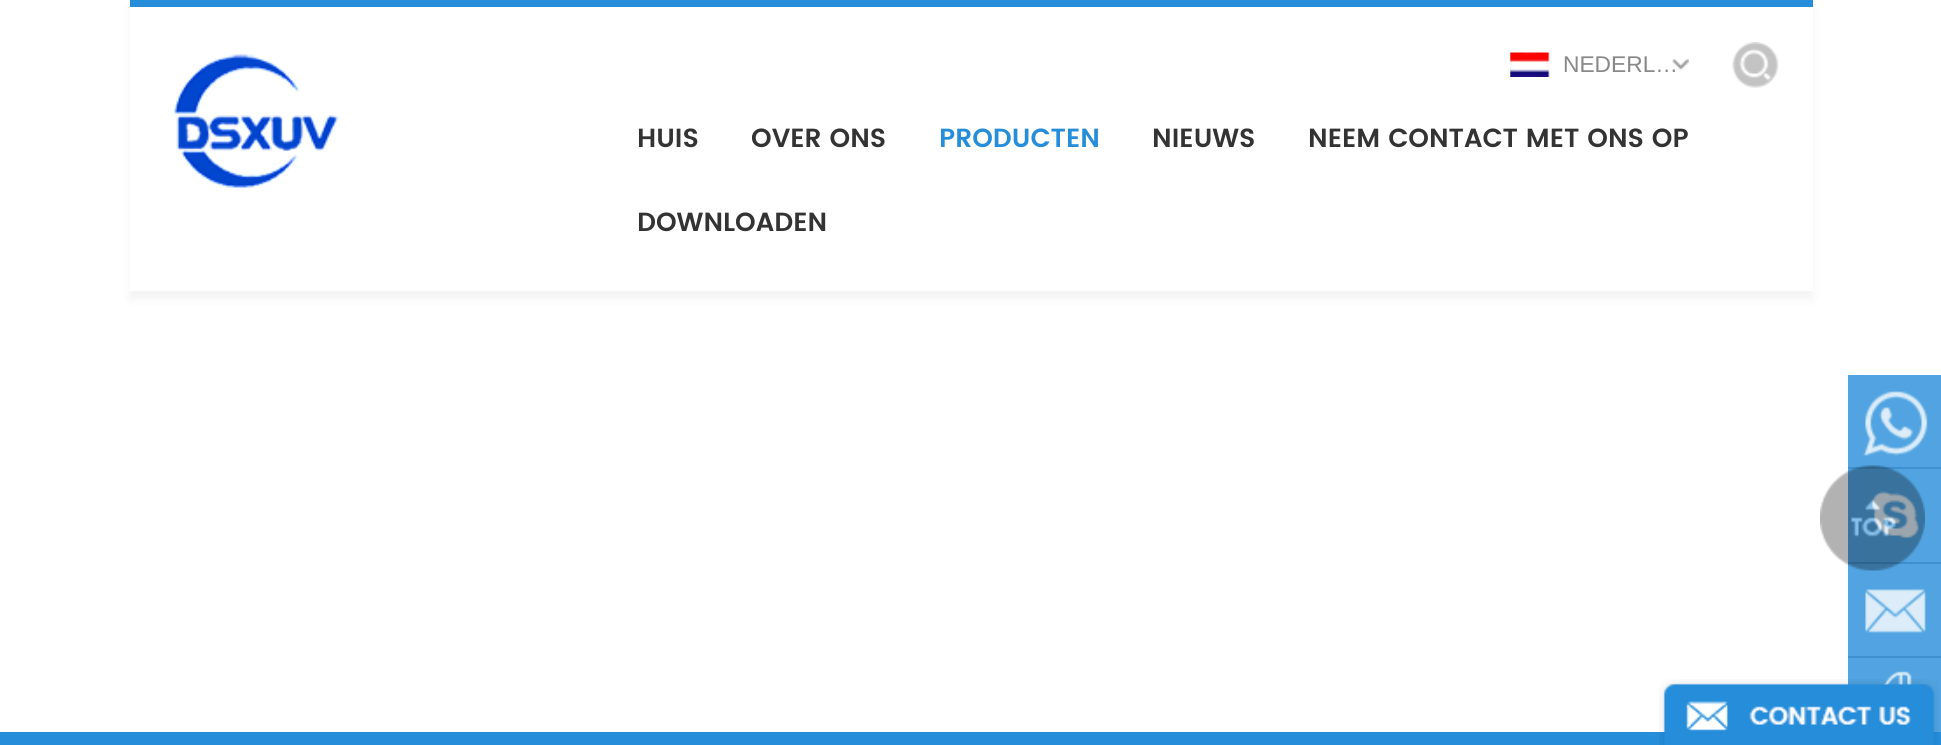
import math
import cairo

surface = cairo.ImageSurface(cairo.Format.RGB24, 1941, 745)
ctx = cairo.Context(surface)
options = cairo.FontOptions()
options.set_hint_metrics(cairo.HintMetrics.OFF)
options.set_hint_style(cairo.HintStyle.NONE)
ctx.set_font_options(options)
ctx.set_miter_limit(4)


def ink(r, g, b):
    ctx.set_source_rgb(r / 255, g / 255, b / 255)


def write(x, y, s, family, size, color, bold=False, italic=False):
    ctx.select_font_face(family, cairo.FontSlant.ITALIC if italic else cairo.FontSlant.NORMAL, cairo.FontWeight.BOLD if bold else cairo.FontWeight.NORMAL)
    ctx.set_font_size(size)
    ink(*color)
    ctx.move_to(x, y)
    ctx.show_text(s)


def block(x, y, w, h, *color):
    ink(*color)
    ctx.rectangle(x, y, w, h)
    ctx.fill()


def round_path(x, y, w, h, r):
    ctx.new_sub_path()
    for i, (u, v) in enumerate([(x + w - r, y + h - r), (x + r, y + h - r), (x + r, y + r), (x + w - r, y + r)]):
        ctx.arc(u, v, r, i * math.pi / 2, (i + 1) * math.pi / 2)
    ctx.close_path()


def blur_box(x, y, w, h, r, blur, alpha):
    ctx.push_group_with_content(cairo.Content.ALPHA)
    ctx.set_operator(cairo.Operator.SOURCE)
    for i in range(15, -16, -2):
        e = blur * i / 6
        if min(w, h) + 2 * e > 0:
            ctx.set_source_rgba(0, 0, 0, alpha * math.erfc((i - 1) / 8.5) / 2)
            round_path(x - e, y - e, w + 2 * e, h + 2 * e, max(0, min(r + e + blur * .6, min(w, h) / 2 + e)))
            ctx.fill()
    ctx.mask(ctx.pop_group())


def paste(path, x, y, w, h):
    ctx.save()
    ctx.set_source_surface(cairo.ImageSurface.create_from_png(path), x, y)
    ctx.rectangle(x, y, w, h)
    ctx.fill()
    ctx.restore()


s1 = dict(family="Liberation Sans", size=22.75, color=(136, 136, 136))
s2 = dict(family="Poppins SemiBold", size=26.25, color=(51, 51, 51))
s3 = dict(family="Poppins SemiBold", size=26.25, color=(37, 141, 218))

ink(255, 255, 255)
ctx.paint()
block(1848, 658, 93, 74, 81, 164, 225)
block(1848, 564, 93, 92, 81, 164, 225)
block(1848, 469, 93, 93, 81, 164, 225)
block(1848, 375, 93, 92, 81, 164, 225)
ctx.save()
ctx.set_fill_rule(cairo.FillRule.EVEN_ODD)
ctx.new_path()
ctx.move_to(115, 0)
ctx.line_to(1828, 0)
ctx.line_to(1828, 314)
ctx.line_to(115, 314)
ctx.close_path()
ctx.move_to(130, 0)
ctx.line_to(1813, 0)
ctx.line_to(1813, 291)
ctx.line_to(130, 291)
ctx.close_path()
ctx.clip()
ink(0, 0, 0)
blur_box(130, 9, 1683, 290, 0, 4.5, 0.05)
ctx.restore()
ctx.set_source_rgba(1, 1, 1, 0.9)
ctx.rectangle(130, 290, 1683, 1)
ctx.fill()
block(130, 0, 1683, 7, 37, 141, 218)
paste("pic1.png", 173, 54, 166, 135)
paste("pic2.png", 1672, 59, 17, 12)
paste("pic3.png", 1510, 52, 40, 25)
write(1563, 72, "NEDERL…", **s1)
paste("pic4.png", 1732, 42, 47, 46)
write(637, 147, "HUIS", **s2)
write(751, 147, "OVER ONS", **s2)
write(939, 147, "PRODUCTEN", **s3)
write(1152, 147, "NIEUWS", **s2)
write(1308, 147, "NEEM CONTACT MET ONS OP", **s2)
write(637, 231, "DOWNLOADEN", **s2)
block(1848, 467, 93, 2, 62, 145, 207)
paste("pic5.png", 1863, 390, 65, 67)
block(1848, 562, 93, 2, 62, 145, 207)
paste("pic6.png", 1872, 491, 47, 48)
block(1848, 656, 93, 2, 62, 145, 207)
paste("pic7.png", 1865, 588, 61, 45)
paste("pic8.png", 1884, 671, 28, 14)
paste("pic9.png", 1820, 465, 105, 106)
block(0, 732, 1665, 13, 37, 141, 218)
block(1933, 732, 8, 13, 37, 141, 218)
paste("pic10.png", 1659, 679, 280, 66)
surface.write_to_png("screenshot.png")
